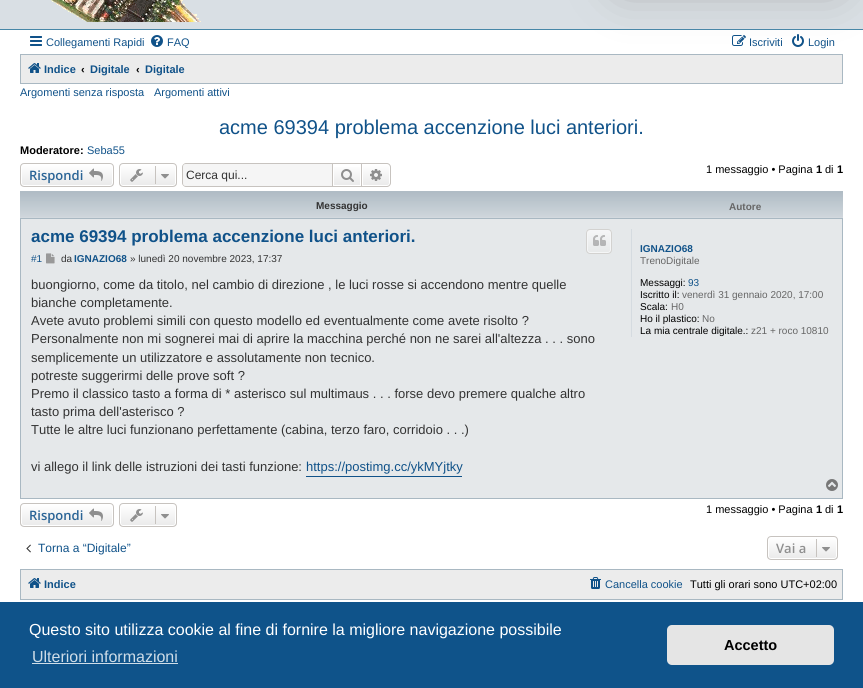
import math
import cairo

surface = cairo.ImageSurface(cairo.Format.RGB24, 863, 688)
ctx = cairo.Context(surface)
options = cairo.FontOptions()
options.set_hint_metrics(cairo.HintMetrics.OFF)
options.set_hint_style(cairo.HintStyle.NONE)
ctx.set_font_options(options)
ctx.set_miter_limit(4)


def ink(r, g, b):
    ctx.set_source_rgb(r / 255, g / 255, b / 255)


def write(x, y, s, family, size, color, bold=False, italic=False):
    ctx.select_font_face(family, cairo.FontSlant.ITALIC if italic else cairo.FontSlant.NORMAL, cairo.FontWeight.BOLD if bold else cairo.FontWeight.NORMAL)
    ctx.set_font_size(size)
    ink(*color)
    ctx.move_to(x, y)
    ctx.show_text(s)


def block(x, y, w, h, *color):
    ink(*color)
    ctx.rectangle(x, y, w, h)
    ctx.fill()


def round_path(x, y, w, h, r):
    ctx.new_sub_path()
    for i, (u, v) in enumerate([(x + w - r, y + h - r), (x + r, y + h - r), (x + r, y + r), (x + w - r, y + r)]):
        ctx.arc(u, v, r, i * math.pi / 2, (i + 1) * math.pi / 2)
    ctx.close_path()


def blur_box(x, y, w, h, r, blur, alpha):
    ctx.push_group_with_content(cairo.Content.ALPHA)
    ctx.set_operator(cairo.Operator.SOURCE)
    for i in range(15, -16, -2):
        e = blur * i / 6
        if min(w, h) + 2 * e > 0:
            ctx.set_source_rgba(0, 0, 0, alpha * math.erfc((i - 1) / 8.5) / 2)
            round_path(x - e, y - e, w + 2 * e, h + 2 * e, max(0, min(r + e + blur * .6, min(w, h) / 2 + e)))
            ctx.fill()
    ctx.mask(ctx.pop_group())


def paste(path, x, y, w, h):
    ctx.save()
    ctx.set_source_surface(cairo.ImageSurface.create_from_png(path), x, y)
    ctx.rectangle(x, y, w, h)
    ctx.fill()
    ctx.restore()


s1 = dict(family="Liberation Sans", size=11, color=(16, 82, 137))
s2 = dict(family="Liberation Sans", size=11, color=(16, 82, 137), bold=True)
s3 = dict(family="Liberation Sans", size=11, color=(0, 0, 0), bold=True)
s4 = dict(family="Liberation Sans", size=20, color=(16, 82, 137))
s5 = dict(family="Open Sans SemiBold", size=13, color=(42, 100, 150))
s6 = dict(family="Liberation Sans", size=12, color=(51, 51, 51))
s7 = dict(family="Liberation Sans", size=11, color=(0, 0, 0))
s8 = dict(family="Liberation Sans", size=10, color=(51, 51, 51), bold=True)
s9 = dict(family="Liberation Sans", size=10, color=(102, 102, 102), bold=True)
s10 = dict(family="Liberation Sans", size=17, color=(16, 82, 137), bold=True)
s11 = dict(family="Liberation Sans", size=10, color=(16, 82, 137))
s12 = dict(family="Liberation Sans", size=10, color=(51, 51, 51))
s13 = dict(family="Liberation Sans", size=10, color=(16, 82, 137), bold=True)
s14 = dict(family="Liberation Sans", size=13, color=(51, 51, 51))
s15 = dict(family="Liberation Sans", size=13, color=(16, 82, 137))
s16 = dict(family="Liberation Sans", size=10, color=(102, 102, 102))
s17 = dict(family="Liberation Sans", size=10, color=(0, 0, 0))
s18 = dict(family="Liberation Sans", size=12, color=(16, 82, 137))
s19 = dict(family="Open Sans SemiBold", size=13, color=(143, 143, 143))
s20 = dict(family="Liberation Sans", size=16, color=(255, 255, 255))
s21 = dict(family="Liberation Sans", size=16, color=(207, 221, 232))
s22 = dict(family="Liberation Sans", size=14.5, color=(0, 0, 0), bold=True)

ink(255, 255, 255)
ctx.paint()
block(0, 0, 863, 29, 217, 223, 228)
block(0, 29, 863, 1, 71, 135, 167)
paste("pic1.png", 51, 0, 150, 22)
ink(236, 236, 236)
ctx.rectangle(20.5, 54.5, 822, 29)
ctx.fill_preserve()
ink(169, 184, 194)
ctx.set_line_width(1)
ctx.stroke()
ink(153, 153, 153)
blur_box(625, -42, 208, 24, 4, 25, 1)
paste("pic2.png", 30, 36, 12, 10)
write(46, 46, "Collegamenti Rapidi", **s1)
paste("pic3.png", 151, 35, 12, 12)
write(167, 46, "FAQ", **s1)
paste("pic4.png", 732, 35, 14, 11)
write(749, 46, "Iscriviti", **s1)
paste("pic5.png", 792, 34, 12, 13)
write(808, 46, "Login", **s1)
paste("pic6.png", 28, 63, 13, 10)
write(44, 73, "Indice", **s2)
write(81, 73, "‹", **s3)
write(90, 73, "Digitale", **s2)
write(136, 73, "‹", **s3)
write(145, 73, "Digitale", **s2)
write(20, 96, "Argomenti senza risposta", **s1)
write(154, 96, "Argomenti attivi", **s1)
write(219, 134, "acme 69394 problema accenzione luci anteriori.", **s4)
write(20, 154, "Moderatore:", **s3)
write(87, 154, "Seba55", **s1)
ctx.save()
round_path(20, 163, 94, 24, 4)
ctx.clip()
gradient = cairo.LinearGradient(67, 164, 67, 186)
gradient.add_color_stop_rgba(0, 1, 1, 1, 1)
gradient.add_color_stop_rgba(1, 0.914, 0.914, 0.914, 1)
ctx.set_source(gradient)
ctx.rectangle(20, 164, 94, 22)
ctx.fill()
ctx.restore()
round_path(21.5, 164.5, 91, 21, 2.5)
ink(255, 255, 255)
ctx.stroke()
round_path(20.5, 163.5, 93, 23, 3.5)
ink(199, 195, 191)
ctx.stroke()
write(29, 180, "Rispondi", **s5)
paste("pic7.png", 89, 168, 14, 13)
ctx.save()
round_path(119, 163, 58, 24, 4)
ctx.clip()
gradient = cairo.LinearGradient(148, 164, 148, 186)
gradient.add_color_stop_rgba(0, 1, 1, 1, 1)
gradient.add_color_stop_rgba(1, 0.914, 0.914, 0.914, 1)
ctx.set_source(gradient)
ctx.rectangle(119, 164, 58, 22)
ctx.fill()
ctx.restore()
round_path(120.5, 164.5, 55, 21, 2.5)
ink(255, 255, 255)
ctx.stroke()
round_path(119.5, 163.5, 57, 23, 3.5)
ink(199, 195, 191)
ctx.stroke()
paste("pic8.png", 130, 169, 13, 13)
block(155, 166, 1, 18, 199, 195, 191)
paste("pic9.png", 161, 174, 8, 5)
ink(245, 245, 245)
ctx.new_path()
ctx.move_to(186, 164)
ctx.line_to(332, 164)
ctx.line_to(332, 186)
ctx.line_to(186, 186)
ctx.curve_to(184.5, 186, 183, 184.5, 183, 183)
ctx.line_to(183, 167)
ctx.curve_to(183, 165.5, 184.5, 164, 186, 164)
ctx.close_path()
ctx.fill()
ink(199, 195, 191)
ctx.set_fill_rule(cairo.FillRule.EVEN_ODD)
ctx.new_path()
ctx.move_to(186, 163)
ctx.line_to(332, 163)
ctx.line_to(332, 187)
ctx.line_to(186, 187)
ctx.curve_to(184, 187, 182, 185, 182, 183)
ctx.line_to(182, 167)
ctx.curve_to(182, 165, 184, 163, 186, 163)
ctx.close_path()
ctx.move_to(186, 164)
ctx.line_to(332, 164)
ctx.line_to(332, 186)
ctx.line_to(186, 186)
ctx.curve_to(184, 186, 183, 185, 183, 183)
ctx.line_to(183, 167)
ctx.curve_to(183, 165, 184, 164, 186, 164)
ctx.close_path()
ctx.fill()
write(186, 179, "Cerca qui...", **s6)
gradient = cairo.LinearGradient(347, 164, 347, 186)
gradient.add_color_stop_rgba(0, 1, 1, 1, 1)
gradient.add_color_stop_rgba(1, 0.914, 0.914, 0.914, 1)
ctx.set_source(gradient)
ctx.rectangle(334, 167, 26, 18)
ctx.fill()
ctx.rectangle(332.5, 163.5, 29, 23)
ink(199, 195, 191)
ctx.stroke()
paste("pic10.png", 341, 169, 13, 13)
gradient = cairo.LinearGradient(376, 164, 376, 186)
gradient.add_color_stop_rgba(0, 1, 1, 1, 1)
gradient.add_color_stop_rgba(1, 0.914, 0.914, 0.914, 1)
ctx.set_source(gradient)
ctx.new_path()
ctx.move_to(362.5, 164.5)
ctx.line_to(387, 164.5)
ctx.curve_to(388.5, 164.5, 389.5, 165.5, 389.5, 167)
ctx.line_to(389.5, 183)
ctx.curve_to(389.5, 184.5, 388.5, 185.5, 387, 185.5)
ctx.line_to(362.5, 185.5)
ctx.close_path()
ctx.fill_preserve()
ink(255, 255, 255)
ctx.stroke()
ink(199, 195, 191)
ctx.new_path()
ctx.move_to(362, 163)
ctx.line_to(387, 163)
ctx.curve_to(389, 163, 391, 165, 391, 167)
ctx.line_to(391, 183)
ctx.curve_to(391, 185, 389, 187, 387, 187)
ctx.line_to(362, 187)
ctx.close_path()
ctx.move_to(362, 164)
ctx.line_to(387, 164)
ctx.curve_to(388.5, 164, 390, 165.5, 390, 167)
ctx.line_to(390, 183)
ctx.curve_to(390, 184.5, 388.5, 186, 387, 186)
ctx.line_to(362, 186)
ctx.close_path()
ctx.fill()
paste("pic11.png", 370, 169, 12, 12)
write(706, 173, "1 messaggio • Pagina", **s7)
write(816, 173, "1", **s3)
write(825, 173, "di", **s7)
write(837, 173, "1", **s3)
block(20, 217, 823, 1, 211, 217, 222)
paste("pic12.png", 20, 191, 823, 26)
write(316, 209, "Messaggio", **s8)
write(729, 210, "Autore", **s9)
ink(229, 232, 234)
ctx.rectangle(20.5, 218.5, 822, 280)
ctx.fill_preserve()
ink(169, 184, 194)
ctx.stroke()
write(31, 242, "acme 69394 problema accenzione luci anteriori.", **s10)
ctx.save()
ctx.set_fill_rule(cairo.FillRule.WINDING)
round_path(586, 229, 26, 25, 4)
ctx.clip()
gradient = cairo.LinearGradient(599, 230, 599, 253)
gradient.add_color_stop_rgba(0, 0.961, 0.965, 0.969, 1)
gradient.add_color_stop_rgba(1, 0.906, 0.914, 0.914, 1)
ctx.set_source(gradient)
ctx.rectangle(586, 230, 26, 23)
ctx.fill()
ctx.restore()
round_path(587.5, 230.5, 23, 22, 2.5)
ink(245, 246, 247)
ctx.stroke()
round_path(586.5, 229.5, 25, 24, 3.5)
ink(211, 210, 208)
ctx.stroke()
paste("pic13.png", 593, 235, 13, 11)
write(31, 262, "#1", **s11)
paste("pic14.png", 46, 253, 9, 11)
write(61, 262, "da", **s12)
write(74, 262, "IGNAZIO68", **s13)
write(130, 262, "» lunedì 20 novembre 2023, 17:37", **s12)
write(31, 289, "buongiorno, come da titolo, nel cambio di direzione , le luci rosse si accendono mentre quelle", **s14)
write(31, 307, "bianche completamente.", **s14)
write(31, 325, "Avete avuto problemi simili con questo modello ed eventualmente come avete risolto ?", **s14)
write(31, 343, "Personalmente non mi sognerei mai di aprire la macchina perché non ne sarei all'altezza . . . sono", **s14)
write(31, 362, "semplicemente un utilizzatore e assolutamente non tecnico.", **s14)
write(31, 380, "potreste suggerirmi delle prove soft ?", **s14)
write(31, 398, "Premo il classico tasto a forma di * asterisco sul multimaus . . . forse devo premere qualche altro", **s14)
write(31, 416, "tasto prima dell'asterisco ?", **s14)
write(31, 434, "Tutte le altre luci funzionano perfettamente (cabina, terzo faro, corridoio . . .)", **s14)
write(31, 471, "vi allego il link delle istruzioni dei tasti funzione:", **s14)
block(306, 476, 156, 1, 16, 82, 137)
write(306, 471, "https://postimg.cc/ykMYjtky", **s15)
block(631, 229, 1, 108, 213, 219, 224)
write(640, 252, "IGNAZIO68", **s13)
write(640, 264, "TrenoDigitale", **s16)
write(640, 286, "Messaggi:", **s17)
write(688, 286, "93", **s11)
write(640, 298, "Iscritto il:", **s17)
write(682, 298, "venerdì 31 gennaio 2020, 17:00", **s16)
write(640, 310, "Scala:", **s17)
write(671, 310, "H0", **s16)
write(640, 322, "Ho il plastico:", **s17)
write(702, 322, "No", **s16)
write(640, 334, "La mia centrale digitale.:", **s17)
write(751, 334, "z21 + roco 10810", **s16)
paste("pic15.png", 826, 479, 12, 12)
ctx.save()
ctx.set_fill_rule(cairo.FillRule.WINDING)
round_path(20, 503, 94, 24, 4)
ctx.clip()
gradient = cairo.LinearGradient(67, 504, 67, 526)
gradient.add_color_stop_rgba(0, 1, 1, 1, 1)
gradient.add_color_stop_rgba(1, 0.914, 0.914, 0.914, 1)
ctx.set_source(gradient)
ctx.rectangle(20, 504, 94, 22)
ctx.fill()
ctx.restore()
round_path(21.5, 504.5, 91, 21, 2.5)
ink(255, 255, 255)
ctx.stroke()
round_path(20.5, 503.5, 93, 23, 3.5)
ink(199, 195, 191)
ctx.stroke()
write(29, 520, "Rispondi", **s5)
paste("pic7.png", 89, 508, 14, 13)
ctx.save()
ctx.set_fill_rule(cairo.FillRule.WINDING)
round_path(119, 503, 58, 24, 4)
ctx.clip()
gradient = cairo.LinearGradient(148, 504, 148, 526)
gradient.add_color_stop_rgba(0, 1, 1, 1, 1)
gradient.add_color_stop_rgba(1, 0.914, 0.914, 0.914, 1)
ctx.set_source(gradient)
ctx.rectangle(119, 504, 58, 22)
ctx.fill()
ctx.restore()
round_path(120.5, 504.5, 55, 21, 2.5)
ink(255, 255, 255)
ctx.stroke()
round_path(119.5, 503.5, 57, 23, 3.5)
ink(199, 195, 191)
ctx.stroke()
paste("pic8.png", 130, 509, 13, 13)
block(155, 506, 1, 18, 199, 195, 191)
paste("pic9.png", 161, 514, 8, 5)
write(706, 513, "1 messaggio • Pagina", **s7)
write(816, 513, "1", **s3)
write(825, 513, "di", **s7)
write(837, 513, "1", **s3)
paste("pic16.png", 26, 544, 5, 9)
write(38, 552, "Torna a “Digitale”", **s18)
ctx.save()
ctx.set_fill_rule(cairo.FillRule.WINDING)
round_path(767, 536, 71, 24, 4)
ctx.clip()
gradient = cairo.LinearGradient(803, 537, 803, 559)
gradient.add_color_stop_rgba(0, 1, 1, 1, 1)
gradient.add_color_stop_rgba(1, 0.914, 0.914, 0.914, 1)
ctx.set_source(gradient)
ctx.rectangle(767, 537, 71, 22)
ctx.fill()
ctx.restore()
round_path(768.5, 537.5, 68, 21, 2.5)
ink(255, 255, 255)
ctx.stroke()
round_path(767.5, 536.5, 70, 23, 3.5)
ink(199, 195, 191)
ctx.stroke()
write(776, 553, "Vai a", **s19)
block(816, 539, 1, 18, 199, 195, 191)
paste("pic9.png", 822, 547, 8, 5)
ink(236, 236, 236)
ctx.rectangle(20.5, 569.5, 822, 30)
ctx.fill_preserve()
ink(169, 184, 194)
ctx.stroke()
paste("pic6.png", 28, 578, 13, 10)
write(44, 588, "Indice", **s2)
paste("pic17.png", 590, 577, 11, 12)
write(605, 588, "Cancella cookie", **s1)
write(690, 588, "Tutti gli orari sono UTC+02:00", **s7)
block(0, 602, 863, 86, 15, 83, 138)
write(29, 635, "Questo sito utilizza cookie al fine di fornire la migliore navigazione possibile", **s20)
write(32, 662, "Ulteriori informazioni", **s21)
block(32, 663, 146, 1, 207, 221, 232)
ink(229, 229, 229)
round_path(667, 625, 167, 40, 5)
ctx.fill()
write(724, 650, "Accetto", **s22)
surface.write_to_png("screenshot.png")
